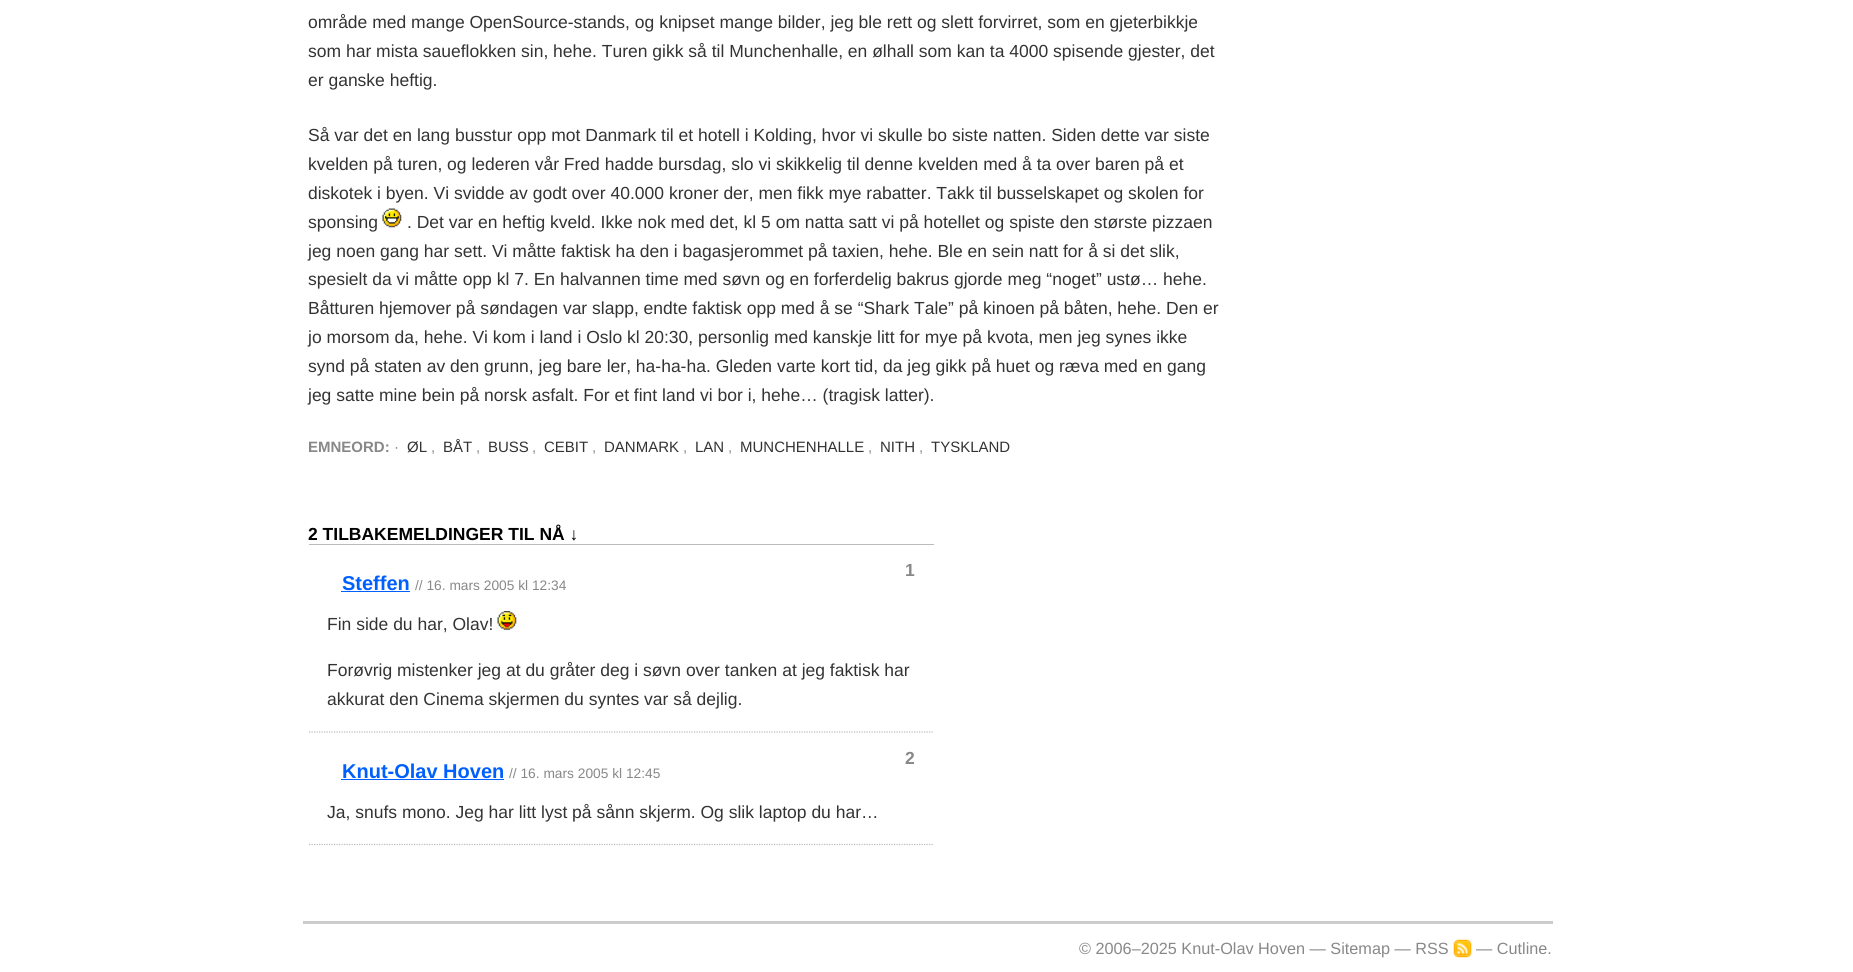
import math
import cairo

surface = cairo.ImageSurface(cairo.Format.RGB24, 1853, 972)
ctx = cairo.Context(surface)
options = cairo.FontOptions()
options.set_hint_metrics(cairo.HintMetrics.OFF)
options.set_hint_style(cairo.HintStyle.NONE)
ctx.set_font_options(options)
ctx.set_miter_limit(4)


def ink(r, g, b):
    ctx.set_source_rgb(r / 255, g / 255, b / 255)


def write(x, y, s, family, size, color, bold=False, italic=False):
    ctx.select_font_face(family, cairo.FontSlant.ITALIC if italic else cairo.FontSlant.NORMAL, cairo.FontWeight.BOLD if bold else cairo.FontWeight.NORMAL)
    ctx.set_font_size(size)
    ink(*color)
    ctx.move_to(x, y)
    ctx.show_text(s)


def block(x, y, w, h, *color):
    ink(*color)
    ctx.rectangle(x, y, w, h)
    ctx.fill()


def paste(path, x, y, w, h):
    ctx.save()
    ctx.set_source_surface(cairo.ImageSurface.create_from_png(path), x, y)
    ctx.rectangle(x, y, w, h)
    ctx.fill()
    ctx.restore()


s1 = dict(family="Liberation Sans", size=17.5, color=(51, 51, 51))
s2 = dict(family="Liberation Sans", size=15, color=(136, 136, 136), bold=True)
s3 = dict(family="Liberation Sans", size=15, color=(136, 136, 136))
s4 = dict(family="Liberation Sans", size=15, color=(51, 51, 51))
s5 = dict(family="Liberation Sans", size=17.5, color=(0, 0, 0), bold=True)
s6 = dict(family="Liberation Sans", size=17.5, color=(136, 136, 136), bold=True)
s7 = dict(family="Liberation Sans", size=20, color=(0, 96, 255), bold=True)
s8 = dict(family="Liberation Sans", size=13.75, color=(136, 136, 136))
s9 = dict(family="Liberation Sans", size=16.25, color=(136, 136, 136))

ink(255, 255, 255)
ctx.paint()
write(308, 28, "område med mange OpenSource-stands, og knipset mange bilder, jeg ble rett og slett forvirret, som en gjeterbikkje", **s1)
write(308, 57, "som har mista saueflokken sin, hehe. Turen gikk så til Munchenhalle, en ølhall som kan ta 4000 spisende gjester, det", **s1)
write(308, 86, "er ganske heftig.", **s1)
write(308, 141, "Så var det en lang busstur opp mot Danmark til et hotell i Kolding, hvor vi skulle bo siste natten. Siden dette var siste", **s1)
write(308, 170, "kvelden på turen, og lederen vår Fred hadde bursdag, slo vi skikkelig til denne kvelden med å ta over baren på et", **s1)
write(308, 199, "diskotek i byen. Vi svidde av godt over 40.000 kroner der, men fikk mye rabatter. Takk til busselskapet og skolen for", **s1)
write(308, 228, "sponsing", **s1)
paste("pic1.png", 382, 208, 20, 20)
write(407, 228, ". Det var en heftig kveld. Ikke nok med det, kl 5 om natta satt vi på hotellet og spiste den største pizzaen", **s1)
write(308, 257, "jeg noen gang har sett. Vi måtte faktisk ha den i bagasjerommet på taxien, hehe. Ble en sein natt for å si det slik,", **s1)
write(308, 285, "spesielt da vi måtte opp kl 7. En halvannen time med søvn og en forferdelig bakrus gjorde meg “noget” ustø… hehe.", **s1)
write(308, 314, "Båtturen hjemover på søndagen var slapp, endte faktisk opp med å se “Shark Tale” på kinoen på båten, hehe. Den er", **s1)
write(308, 343, "jo morsom da, hehe. Vi kom i land i Oslo kl 20:30, personlig med kanskje litt for mye på kvota, men jeg synes ikke", **s1)
write(308, 372, "synd på staten av den grunn, jeg bare ler, ha-ha-ha. Gleden varte kort tid, da jeg gikk på huet og ræva med en gang", **s1)
write(308, 401, "jeg satte mine bein på norsk asfalt. For et fint land vi bor i, hehe… (tragisk latter).", **s1)
write(308, 452, "EMNEORD:", **s2)
write(394, 452, "·", **s3)
write(407, 452, "ØL", **s4)
write(443, 452, "BÅT", **s4)
write(488, 452, "BUSS", **s4)
write(544, 452, "CEBIT", **s4)
write(604, 452, "DANMARK", **s4)
write(695, 452, "LAN", **s4)
write(740, 452, "MUNCHENHALLE", **s4)
write(880, 452, "NITH", **s4)
write(931, 452, "TYSKLAND", **s4)
write(431, 452, ",", **s3)
write(476, 452, ",", **s3)
write(532, 452, ",", **s3)
write(592, 452, ",", **s3)
write(683, 452, ",", **s3)
write(728, 452, ",", **s3)
write(868, 452, ",", **s3)
write(919, 452, ",", **s3)
write(308, 540, "2 TILBAKEMELDINGER TIL NÅ ↓", **s5)
block(309, 544, 625, 1, 187, 187, 187)
ctx.new_path()
ctx.move_to(309, 732)
ctx.line_to(934, 732)
ctx.set_line_width(1.2)
ctx.set_dash([1.25, 1.25])
ctx.stroke()
write(905, 576, "1", **s6)
write(342, 590, "Steffen", **s7)
block(341, 591, 69, 1, 0, 96, 255)
write(415, 590, "// 16. mars 2005 kl 12:34", **s8)
write(327, 630, "Fin side du har, Olav!", **s1)
paste("pic2.png", 497, 611, 20, 19)
write(327, 676, "Forøvrig mistenker jeg at du gråter deg i søvn over tanken at jeg faktisk har", **s1)
write(327, 705, "akkurat den Cinema skjermen du syntes var så dejlig.", **s1)
ctx.new_path()
ctx.move_to(309, 844.5)
ctx.line_to(934, 844.5)
ink(187, 187, 187)
ctx.stroke()
write(905, 764, "2", **s6)
write(342, 778, "Knut-Olav Hoven", **s7)
block(341, 779, 163, 1, 0, 96, 255)
write(509, 778, "// 16. mars 2005 kl 12:45", **s8)
write(327, 818, "Ja, snufs mono. Jeg har litt lyst på sånn skjerm. Og slik laptop du har…", **s1)
block(303, 921, 1250, 3, 204, 204, 204)
write(1079, 954, "© 2006–2025 Knut-Olav Hoven — Sitemap — RSS", **s9)
paste("pic3.png", 1453, 939, 19, 19)
write(1476, 954, "— Cutline.", **s9)
surface.write_to_png("screenshot.png")
